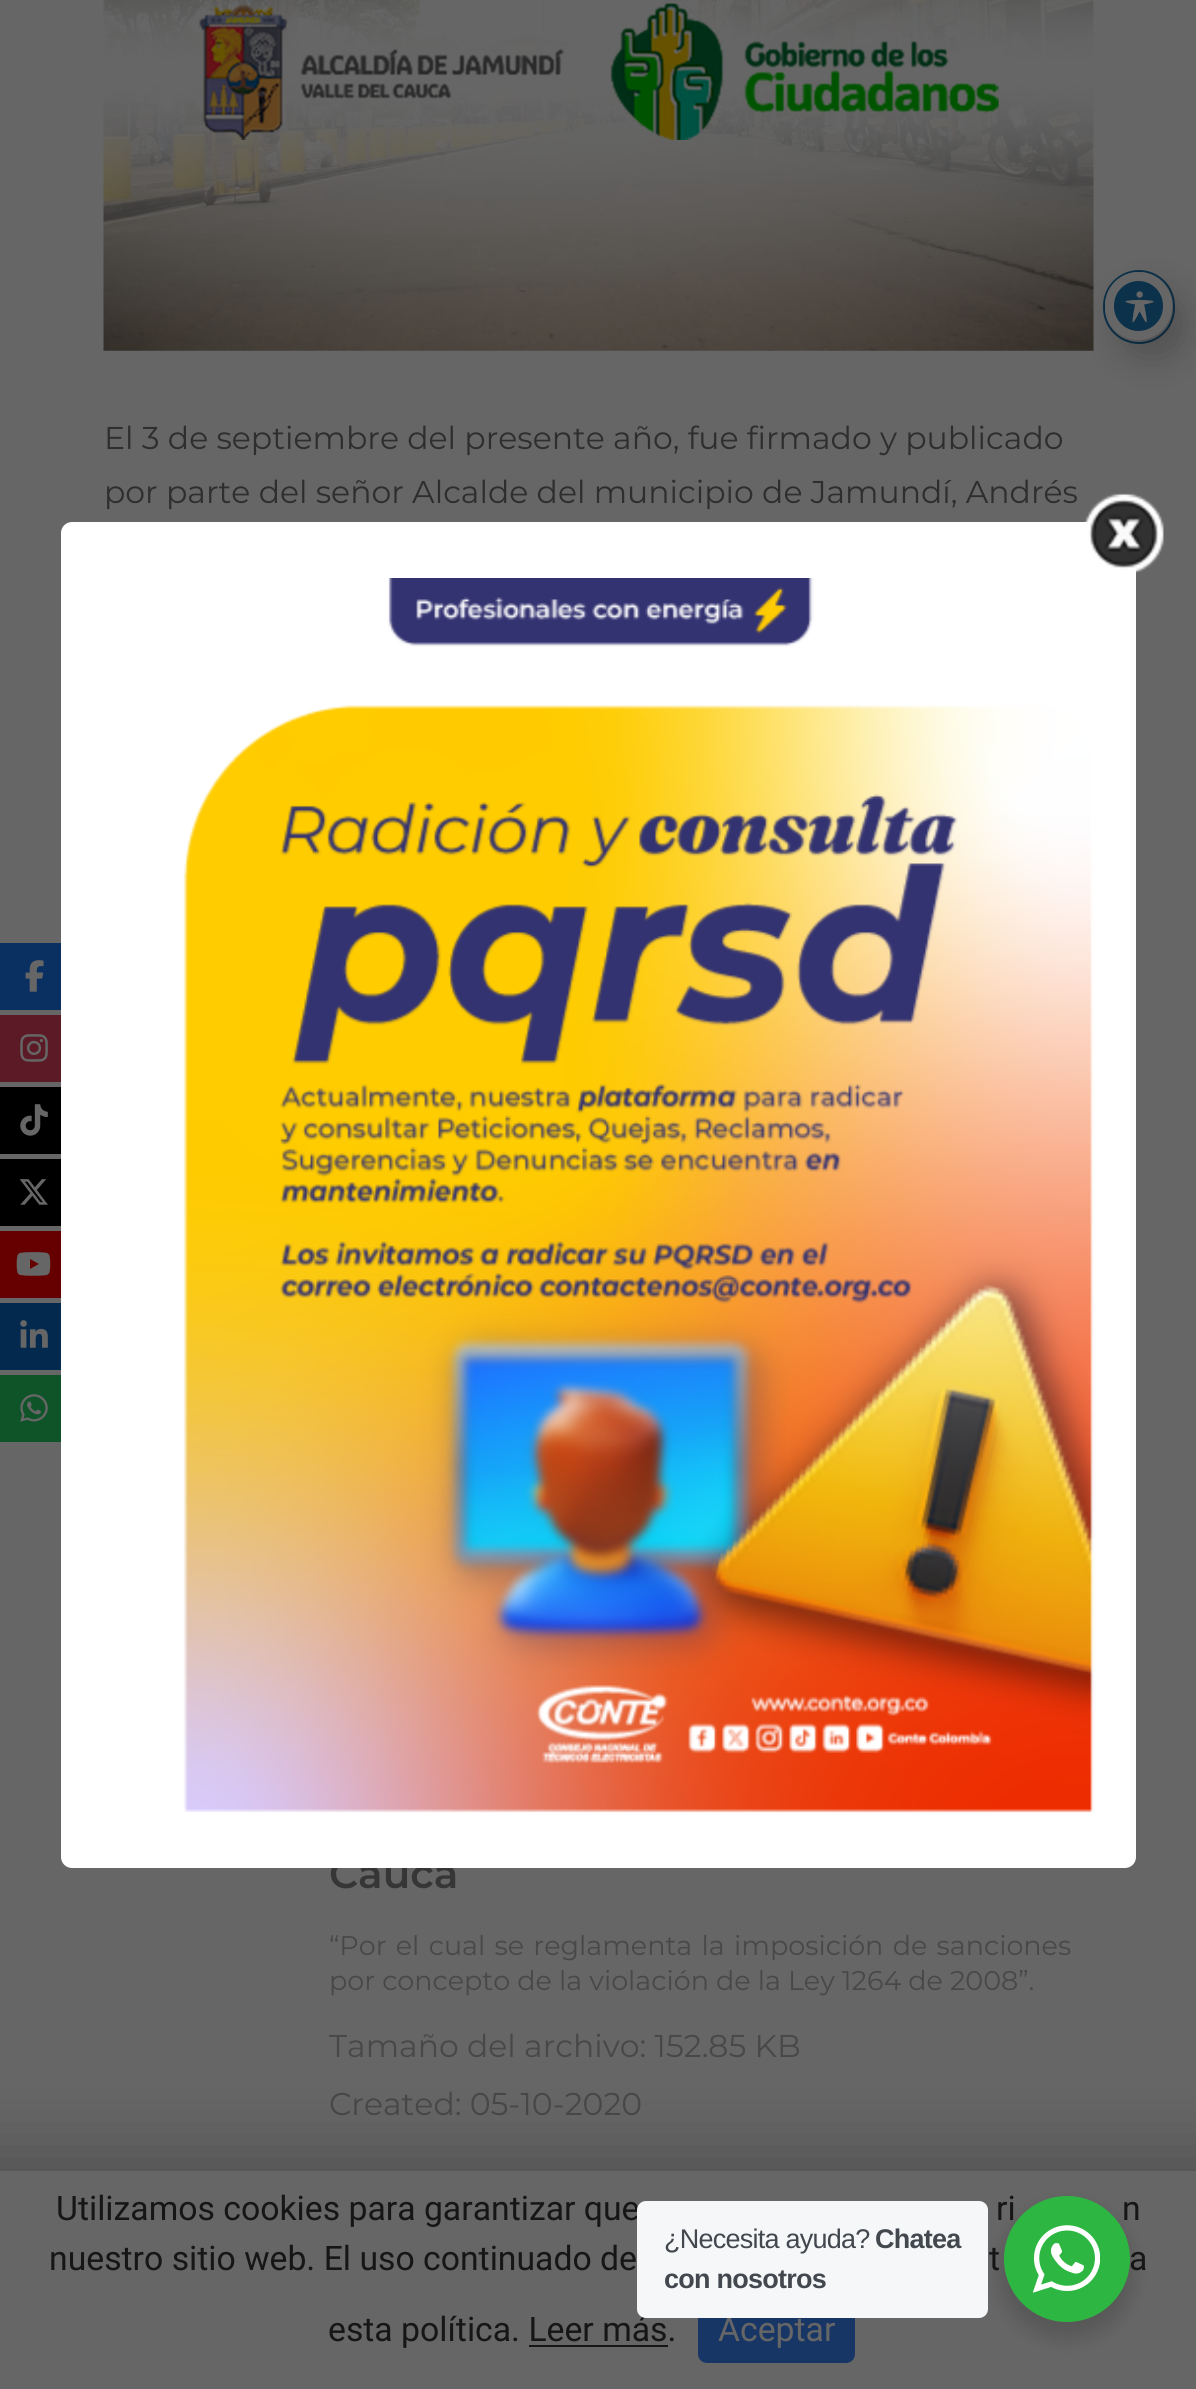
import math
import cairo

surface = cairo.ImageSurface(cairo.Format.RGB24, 1196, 2389)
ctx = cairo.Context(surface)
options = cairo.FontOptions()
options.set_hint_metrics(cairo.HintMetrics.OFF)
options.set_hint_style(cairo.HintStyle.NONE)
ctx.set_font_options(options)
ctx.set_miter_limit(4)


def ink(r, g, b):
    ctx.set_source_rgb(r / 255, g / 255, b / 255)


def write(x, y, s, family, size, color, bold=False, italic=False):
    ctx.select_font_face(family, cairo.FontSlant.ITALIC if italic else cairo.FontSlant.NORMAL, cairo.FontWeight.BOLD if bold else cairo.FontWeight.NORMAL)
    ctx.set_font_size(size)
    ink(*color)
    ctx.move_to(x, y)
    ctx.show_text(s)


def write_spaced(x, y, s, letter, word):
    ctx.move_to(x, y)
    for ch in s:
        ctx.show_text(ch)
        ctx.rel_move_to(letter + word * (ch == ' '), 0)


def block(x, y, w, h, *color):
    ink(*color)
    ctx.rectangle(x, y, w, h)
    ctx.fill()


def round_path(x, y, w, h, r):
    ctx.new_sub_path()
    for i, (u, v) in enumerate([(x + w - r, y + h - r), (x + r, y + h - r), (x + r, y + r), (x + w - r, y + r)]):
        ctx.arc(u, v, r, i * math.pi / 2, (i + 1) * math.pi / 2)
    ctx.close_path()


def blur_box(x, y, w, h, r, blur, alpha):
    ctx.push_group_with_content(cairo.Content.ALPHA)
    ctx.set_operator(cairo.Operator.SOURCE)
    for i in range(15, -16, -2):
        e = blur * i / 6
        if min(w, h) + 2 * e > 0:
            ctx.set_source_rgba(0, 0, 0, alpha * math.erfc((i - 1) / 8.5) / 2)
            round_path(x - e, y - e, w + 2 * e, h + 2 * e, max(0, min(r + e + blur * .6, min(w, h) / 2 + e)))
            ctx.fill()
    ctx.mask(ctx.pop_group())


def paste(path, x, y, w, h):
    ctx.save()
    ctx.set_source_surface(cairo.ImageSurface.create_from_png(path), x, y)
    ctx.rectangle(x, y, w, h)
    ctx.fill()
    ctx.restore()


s1 = dict(family="Montserrat", size=31.5, color=(46, 46, 46))
s2 = dict(family="Montserrat SemiBold", size=40.5, color=(54, 54, 54))
s3 = dict(family="Montserrat", size=27, color=(72, 72, 72))
s4 = dict(family="Montserrat", size=31.5, color=(72, 72, 72))
s5 = dict(family="Roboto", size=33.75, color=(22, 22, 22))
s6 = dict(family="Roboto", size=33.75, color=(102, 102, 102))

ink(102, 102, 102)
ctx.paint()
round_path(1104, 271, 70, 72, 35)
ink(12, 49, 74)
ctx.stroke()
paste("pic2.png", 103, 0, 991, 351)
ink(0, 0, 0)
blur_box(1118, 290, 68, 68, 34, 18, 0.2)
ink(12, 49, 74)
round_path(1109.5, 276.5, 58, 59, 29)
ctx.fill_preserve()
ink(102, 102, 102)
ctx.set_line_width(9)
ctx.stroke()
paste("pic1.png", 1125, 291, 29, 32)
write(104, 449, "El 3 de septiembre del presente año, fue firmado y publicado", **s1)
write(104, 503, "por parte del señor Alcalde del municipio de Jamundí, Andrés", **s1)
write(329, 1888, "Cauca", **s2)
ctx.select_font_face("Montserrat")
ctx.set_font_size(27)
ink(72, 72, 72)
write_spaced(329, 1955, "“Por el cual se reglamenta la imposición de sanciones", 0, 2.25)
write(329, 1990, "por concepto de la violación de la Ley 1264 de 2008”.", **s3)
write(329, 2057, "Tamaño del archivo: 152.85 KB", **s4)
write(329, 2115, "Created: 05-10-2020", **s4)
block(0, 943, 61, 67, 10, 48, 97)
paste("pic3.png", 25, 960, 19, 32)
block(0, 1015, 61, 67, 91, 26, 38)
paste("pic4.png", 20, 1034, 28, 28)
block(0, 1087, 61, 67, 0, 0, 0)
paste("pic5.png", 20, 1104, 28, 32)
block(0, 1159, 61, 67, 0, 0, 0)
paste("pic6.png", 19, 1179, 29, 26)
block(0, 1231, 61, 67, 102, 0, 0)
paste("pic7.png", 16, 1252, 35, 24)
block(0, 1303, 61, 67, 4, 41, 78)
paste("pic8.png", 20, 1320, 28, 28)
block(0, 1375, 61, 67, 15, 84, 41)
paste("pic9.png", 20, 1394, 28, 28)
ink(255, 255, 255)
round_path(61, 522, 1075, 1346, 11)
ctx.fill()
paste("pic10.png", 1084, 493, 80, 81)
paste("pic11.png", 183, 578, 911, 1235)
ink(0, 0, 0)
blur_box(-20, 2151, 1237, 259, 0, 35, 0.2)
block(0, 2171, 1196, 218, 102, 102, 102)
write(56, 2220, "Utilizamos cookies para garantizar que", **s5)
write(996, 2220, "ri", **s5)
write(1122, 2220, "n", **s5)
write(49, 2270, "nuestro sitio web. El uso continuado de", **s5)
write(989, 2270, "t", **s5)
write(1129, 2270, "a", **s5)
write(328, 2341, "esta política. Leer más.", **s5)
ink(23, 54, 102)
round_path(698, 2300, 157, 63, 9)
ctx.fill()
write(718, 2341, "Aceptar", **s6)
block(529, 2345, 139, 2, 22, 22, 22)
ink(0, 0, 0)
blur_box(999, 2205, 135, 135, 67.5, 9, 0.14)
ink(245, 247, 249)
round_path(637, 2201, 351, 117, 9)
ctx.fill()
ctx.select_font_face("Liberation Sans")
ctx.set_font_size(27)
ink(67, 71, 78)
write_spaced(664, 2248, "¿Necesita ayuda?", -0.75, 0)
ctx.select_font_face("Liberation Sans", cairo.FontSlant.NORMAL, cairo.FontWeight.BOLD)
write_spaced(875, 2248, "Chatea", -0.75, 0)
write_spaced(664, 2288, "con nosotros", -0.75, 0)
ink(45, 183, 66)
ctx.new_path()
ctx.arc(1067, 2259, 63, 0, 2 * math.pi)
ctx.fill()
paste("pic12.png", 1033, 2225, 67, 68)
surface.write_to_png("screenshot.png")
